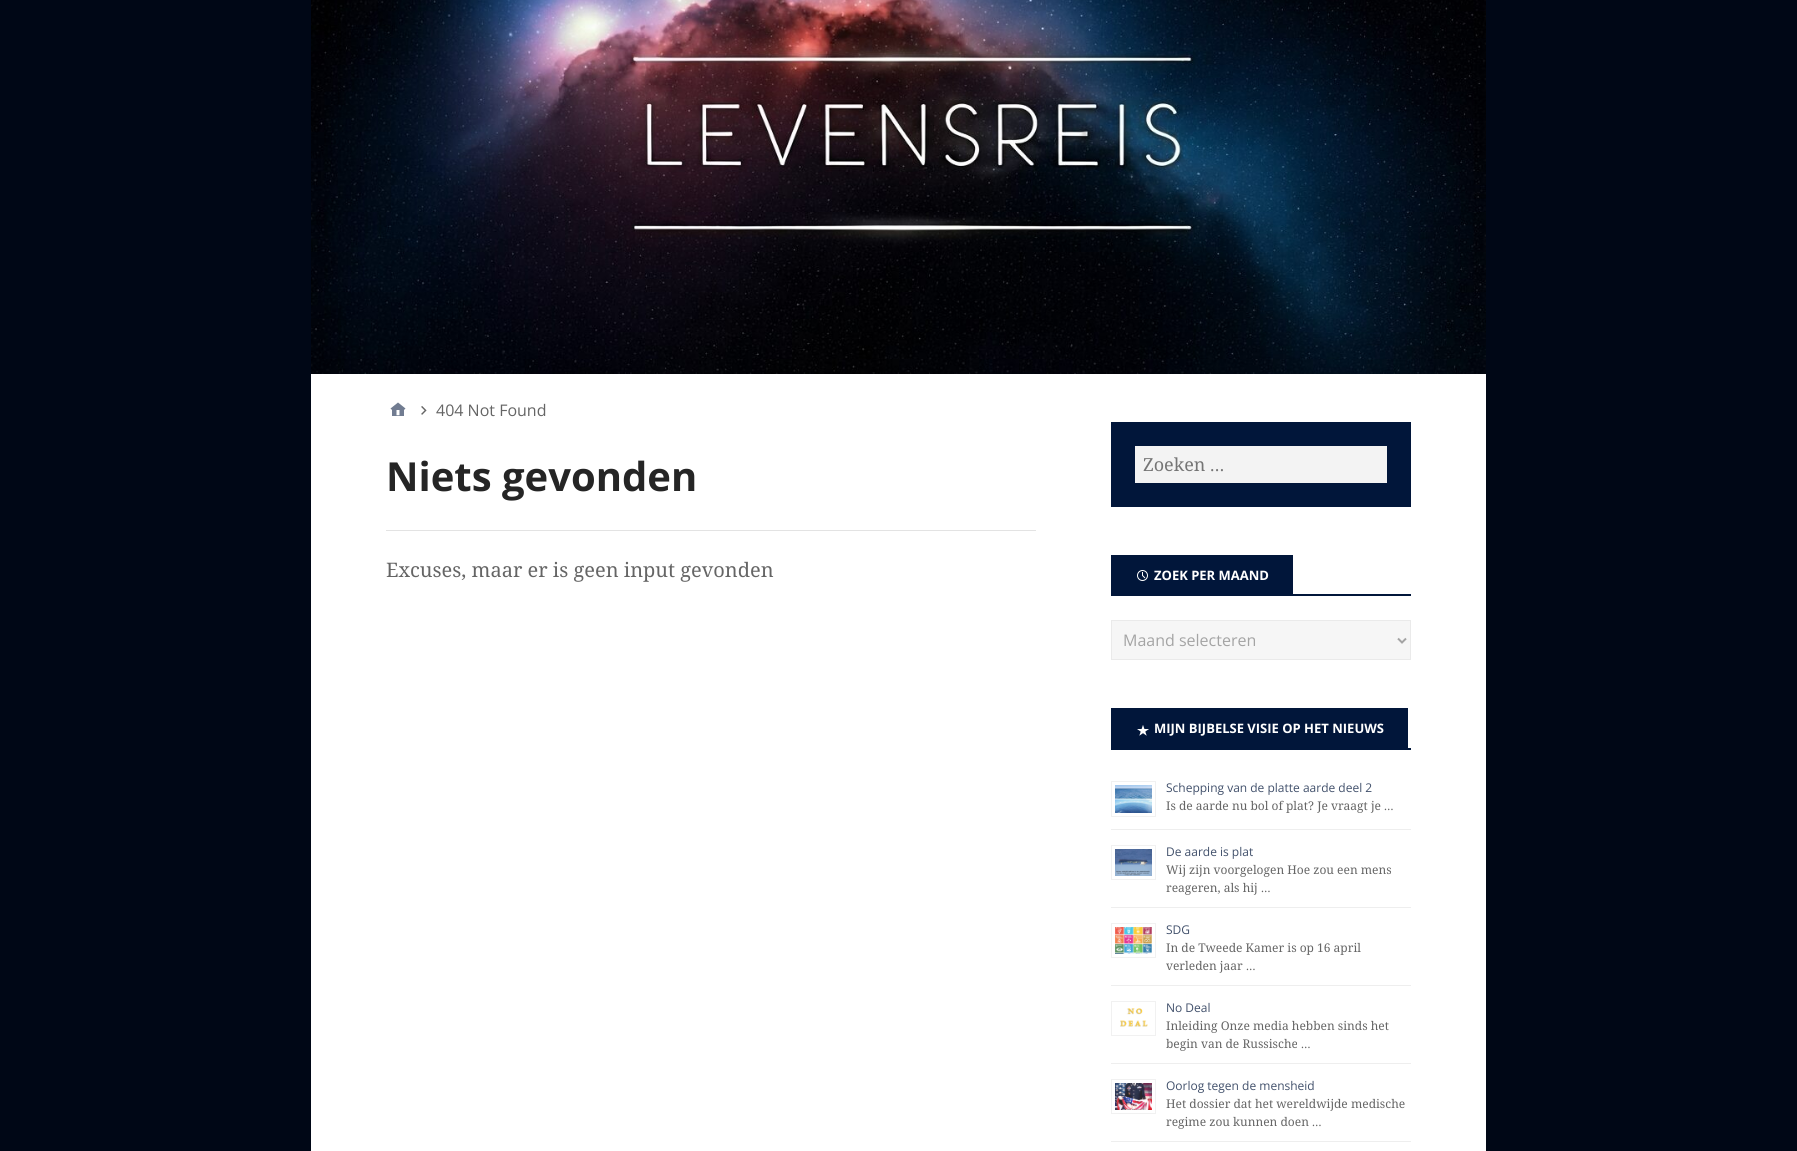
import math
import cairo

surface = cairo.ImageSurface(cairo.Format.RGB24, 1797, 1151)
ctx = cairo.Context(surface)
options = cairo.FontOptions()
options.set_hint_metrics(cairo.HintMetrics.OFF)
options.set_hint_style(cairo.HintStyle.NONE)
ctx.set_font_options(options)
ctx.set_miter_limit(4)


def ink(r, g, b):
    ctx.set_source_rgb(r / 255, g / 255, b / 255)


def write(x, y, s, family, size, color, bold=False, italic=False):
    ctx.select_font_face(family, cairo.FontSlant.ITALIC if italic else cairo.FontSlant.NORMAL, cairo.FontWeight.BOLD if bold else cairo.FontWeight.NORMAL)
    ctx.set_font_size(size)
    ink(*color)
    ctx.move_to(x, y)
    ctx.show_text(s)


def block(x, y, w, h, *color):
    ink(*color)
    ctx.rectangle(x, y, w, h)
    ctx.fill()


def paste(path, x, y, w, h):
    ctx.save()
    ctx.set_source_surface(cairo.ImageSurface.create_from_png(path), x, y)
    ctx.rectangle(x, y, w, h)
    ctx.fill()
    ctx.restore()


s1 = dict(family="Open Sans", size=16, color=(101, 101, 101))
s2 = dict(family="Open Sans", size=40, color=(37, 37, 37), bold=True)
s3 = dict(family="Droid Serif", size=20, color=(101, 101, 101))
s4 = dict(family="Droid Serif", size=18, color=(117, 117, 117))
s5 = dict(family="Lora", size=18, color=(117, 117, 117))
s6 = dict(family="Open Sans", size=13, color=(255, 255, 255), bold=True)
s7 = dict(family="Open Sans", size=16, color=(164, 164, 164))
s8 = dict(family="Open Sans", size=12, color=(65, 80, 107))
s9 = dict(family="Droid Serif", size=12, color=(101, 101, 101))
s10 = dict(family="Lora", size=12, color=(101, 101, 101))

ink(0, 7, 22)
ctx.paint()
block(311, 374, 1175, 777, 255, 255, 255)
paste("pic1.png", 311, 0, 1175, 374)
paste("pic2.png", 390, 402, 16, 14)
paste("pic3.png", 421, 406, 6, 9)
write(436, 416, "404 Not Found", **s1)
block(386, 530, 650, 1, 227, 227, 227)
write(386, 491, "Niets gevonden", **s2)
write(386, 577, "Excuses, maar er is geen input gevonden", **s3)
block(1111, 422, 300, 85, 1, 22, 58)
block(1135, 446, 252, 37, 243, 243, 243)
write(1143, 471, "Zoeken", **s4)
write(1210, 471, "…", **s5)
block(1111, 594, 300, 2, 1, 22, 58)
block(1111, 555, 182, 39, 1, 22, 58)
paste("pic4.png", 1137, 570, 11, 11)
write(1154, 580, "ZOEK PER MAAND", **s6)
ink(246, 246, 246)
ctx.rectangle(1111.5, 620.5, 299, 39)
ctx.fill_preserve()
ink(234, 234, 234)
ctx.set_line_width(1)
ctx.stroke()
ctx.new_path()
ctx.move_to(1398, 638.5)
ctx.line_to(1402, 642.5)
ctx.line_to(1406, 638.5)
ink(164, 164, 164)
ctx.set_line_width(2)
ctx.stroke()
write(1123, 646, "Maand selecteren", **s7)
block(1111, 748, 300, 2, 1, 22, 58)
block(1111, 708, 297, 40, 1, 22, 58)
paste("pic5.png", 1137, 725, 12, 11)
write(1154, 733, "MIJN BIJBELSE VISIE OP HET NIEUWS", **s6)
block(1111, 829, 300, 1, 238, 238, 238)
ctx.rectangle(1111.5, 781.5, 44, 35)
ink(241, 241, 241)
ctx.set_line_width(1)
ctx.stroke()
paste("pic6.png", 1115, 785, 37, 28)
write(1166, 792, "Schepping van de platte aarde deel 2", **s8)
write(1166, 810, "Is de aarde nu bol of plat? Je vraagt je", **s9)
write(1384, 810, "…", **s10)
block(1111, 907, 300, 1, 238, 238, 238)
ctx.rectangle(1111.5, 845.5, 44, 34)
ink(241, 241, 241)
ctx.stroke()
paste("pic7.png", 1115, 849, 37, 27)
write(1166, 856, "De aarde is plat", **s8)
write(1166, 874, "Wij zijn voorgelogen Hoe zou een mens", **s9)
write(1166, 892, "reageren, als hij", **s9)
write(1261, 892, "…", **s10)
block(1111, 985, 300, 1, 238, 238, 238)
ctx.rectangle(1111.5, 923.5, 44, 34)
ink(241, 241, 241)
ctx.stroke()
paste("pic8.png", 1115, 927, 37, 27)
write(1166, 934, "SDG", **s8)
write(1166, 952, "In de Tweede Kamer is op 16 april", **s9)
write(1166, 970, "verleden jaar", **s9)
write(1246, 970, "…", **s10)
block(1111, 1063, 300, 1, 238, 238, 238)
ctx.rectangle(1111.5, 1001.5, 44, 34)
ink(241, 241, 241)
ctx.stroke()
paste("pic9.png", 1120, 1008, 28, 19)
write(1166, 1012, "No Deal", **s8)
write(1166, 1030, "Inleiding Onze media hebben sinds het", **s9)
write(1166, 1048, "begin van de Russische", **s9)
write(1301, 1048, "…", **s10)
block(1111, 1141, 300, 1, 238, 238, 238)
ctx.rectangle(1111.5, 1079.5, 44, 34)
ink(241, 241, 241)
ctx.stroke()
paste("pic10.png", 1115, 1083, 37, 27)
write(1166, 1090, "Oorlog tegen de mensheid", **s8)
write(1166, 1108, "Het dossier dat het wereldwijde medische", **s9)
write(1166, 1126, "regime zou kunnen doen", **s9)
write(1312, 1126, "…", **s10)
surface.write_to_png("screenshot.png")
